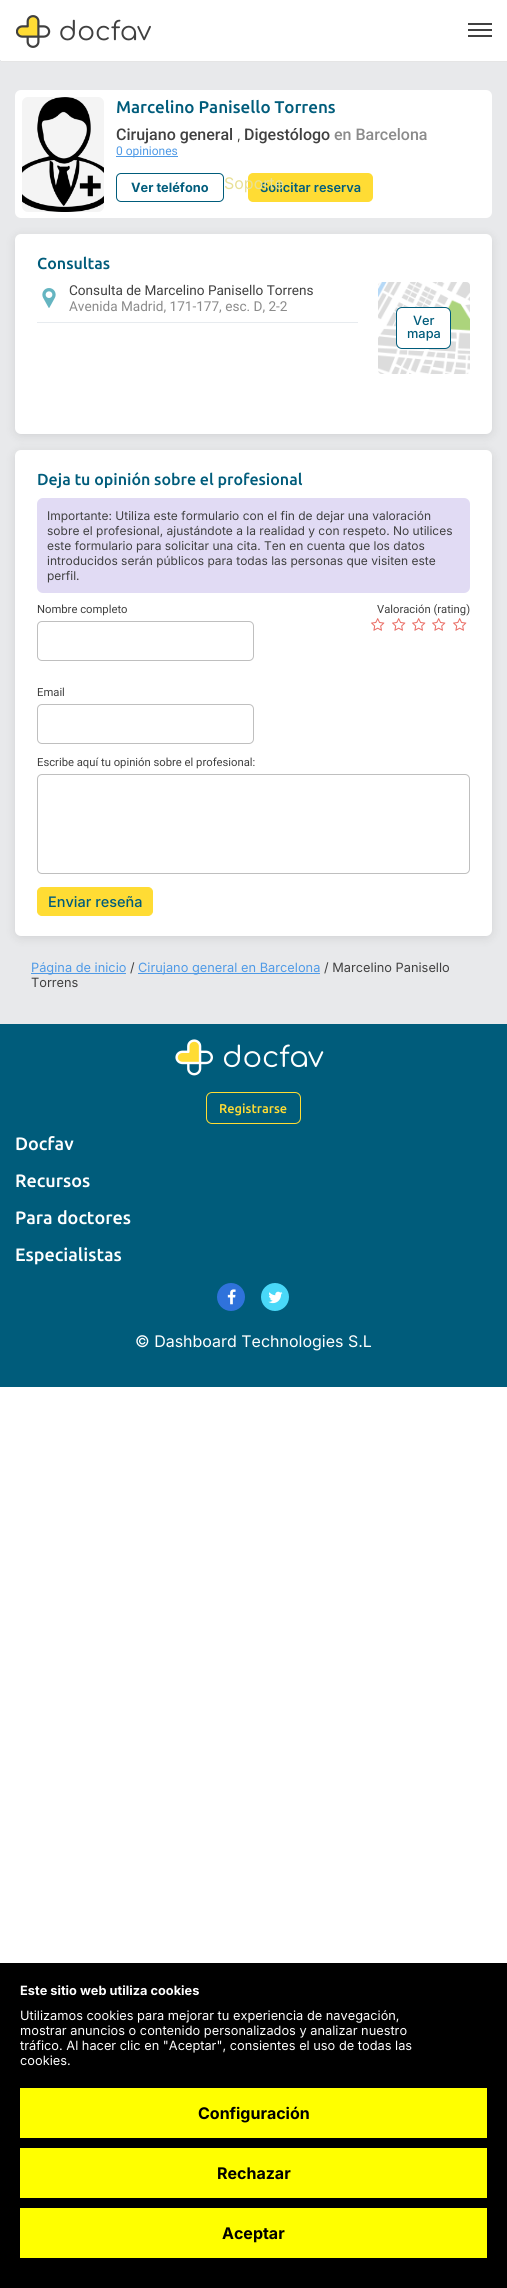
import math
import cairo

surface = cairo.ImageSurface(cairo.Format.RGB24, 507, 2288)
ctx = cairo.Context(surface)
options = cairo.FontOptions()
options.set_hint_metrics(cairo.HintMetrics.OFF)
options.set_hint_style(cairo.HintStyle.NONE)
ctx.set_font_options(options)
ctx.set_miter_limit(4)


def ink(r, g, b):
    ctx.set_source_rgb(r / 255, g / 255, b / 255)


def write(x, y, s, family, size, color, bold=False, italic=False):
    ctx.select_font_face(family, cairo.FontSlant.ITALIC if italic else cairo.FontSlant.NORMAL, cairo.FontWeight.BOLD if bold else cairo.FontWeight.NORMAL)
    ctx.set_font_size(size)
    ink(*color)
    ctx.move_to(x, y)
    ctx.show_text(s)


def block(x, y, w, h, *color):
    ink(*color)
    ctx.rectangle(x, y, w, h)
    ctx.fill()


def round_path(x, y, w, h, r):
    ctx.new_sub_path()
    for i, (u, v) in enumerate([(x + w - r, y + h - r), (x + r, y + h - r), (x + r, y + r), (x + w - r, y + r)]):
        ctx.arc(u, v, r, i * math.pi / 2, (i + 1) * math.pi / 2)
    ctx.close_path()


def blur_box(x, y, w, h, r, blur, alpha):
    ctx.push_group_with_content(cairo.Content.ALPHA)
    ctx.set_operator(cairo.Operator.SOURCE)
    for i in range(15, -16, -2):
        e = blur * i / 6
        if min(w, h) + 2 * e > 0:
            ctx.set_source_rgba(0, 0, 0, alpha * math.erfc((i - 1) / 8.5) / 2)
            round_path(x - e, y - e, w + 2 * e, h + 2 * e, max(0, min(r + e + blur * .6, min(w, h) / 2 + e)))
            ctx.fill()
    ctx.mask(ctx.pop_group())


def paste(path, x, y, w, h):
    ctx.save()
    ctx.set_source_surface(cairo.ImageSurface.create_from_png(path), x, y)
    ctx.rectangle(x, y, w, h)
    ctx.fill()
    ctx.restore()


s1 = dict(family="Ubuntu Medium", size=17, color=(0, 92, 123))
s2 = dict(family="Roboto Medium", size=16, color=(64, 64, 64))
s3 = dict(family="Inter", size=12.8, color=(64, 62, 55))
s4 = dict(family="Roboto Medium", size=16, color=(139, 139, 139))
s5 = dict(family="Roboto", size=12, color=(79, 154, 230))
s6 = dict(family="Inter", size=12.8, color=(0, 92, 123), bold=True)
s7 = dict(family="Inter SemiBold", size=12.8, color=(0, 92, 123))
s8 = dict(family="Ubuntu Medium", size=16, color=(0, 92, 123))
s9 = dict(family="Roboto", size=13.6, color=(64, 64, 64))
s10 = dict(family="Roboto", size=13.6, color=(139, 139, 139))
s11 = dict(family="Inter Medium", size=12.8, color=(0, 92, 123))
s12 = dict(family="Inter", size=12, color=(64, 64, 64))
s13 = dict(family="Roboto", size=11.25, color=(64, 64, 64))
s14 = dict(family="Inter Medium", size=14.5, color=(0, 92, 123))
s15 = dict(family="Inter", size=12.8, color=(79, 154, 230))
s16 = dict(family="Inter", size=12.8, color=(64, 64, 64))
s17 = dict(family="Inter", size=16, color=(232, 224, 151))
s18 = dict(family="Ubuntu Medium", size=12.8, color=(255, 220, 52))
s19 = dict(family="Ubuntu Medium", size=18, color=(255, 255, 255))
s20 = dict(family="Inter", size=16, color=(255, 255, 255))
s21 = dict(family="Inter", size=12.8, color=(255, 255, 255), bold=True)
s22 = dict(family="Inter", size=12.8, color=(255, 255, 255))
s23 = dict(family="Inter", size=16, color=(0, 0, 0), bold=True)

ink(255, 255, 255)
ctx.paint()
block(0, 60, 507, 964, 232, 233, 235)
ink(255, 255, 255)
round_path(15, 90, 477, 128, 6)
ctx.fill()
ink(244, 244, 244)
round_path(22, 97, 82, 115, 6)
ctx.fill()
paste("pic1.png", 22, 97, 82, 115)
write(116, 113, "Marcelino Panisello Torrens", **s1)
write(116, 140, "Cirujano general", **s2)
write(237, 140, ",", **s3)
write(244, 140, "Digestólogo", **s2)
write(334, 140, "en Barcelona", **s4)
block(116, 156, 62, 1, 79, 154, 230)
write(116, 155, "0 opiniones", **s5)
round_path(116.5, 173.5, 107, 28, 4.5)
ink(0, 92, 123)
ctx.set_line_width(1)
ctx.stroke()
write(131, 192, "Ver teléfono", **s6)
ink(255, 220, 52)
round_path(249, 174, 123, 27, 4)
ctx.fill_preserve()
ctx.set_line_width(2)
ctx.stroke()
write(260, 192, "Solicitar reserva", **s7)
ink(0, 0, 0)
blur_box(15, 236, 477, 200, 6, 5, 0.1)
ink(255, 255, 255)
round_path(15, 234, 477, 200, 6)
ctx.fill()
write(37, 269, "Consultas", **s8)
paste("pic2.png", 42, 288, 14, 20)
write(69, 295, "Consulta de Marcelino Panisello Torrens", **s9)
write(69, 311, "Avenida Madrid, 171-177, esc. D, 2-2", **s10)
block(37, 322, 321, 1, 231, 235, 239)
paste("pic3.png", 378, 282, 92, 92)
ink(255, 255, 255)
round_path(396.5, 307.5, 54, 41, 5.5)
ctx.fill_preserve()
ink(0, 92, 123)
ctx.set_line_width(1)
ctx.stroke()
write(413, 325, "Ver", **s11)
write(407, 338, "mapa", **s11)
ink(0, 0, 0)
blur_box(15, 452, 477, 486, 6, 5, 0.1)
ink(255, 255, 255)
round_path(15, 450, 477, 486, 6)
ctx.fill()
write(37, 485, "Deja tu opinión sobre el profesional", **s8)
ink(225, 219, 244)
round_path(37, 498, 433, 95, 6)
ctx.fill()
write(47, 520, "Importante: Utiliza este formulario con el fin de dejar una valoración", **s12)
write(47, 535, "sobre el profesional, ajustándote a la realidad y con respeto. No utilices", **s12)
write(47, 550, "este formulario para solicitar una cita. Ten en cuenta que los datos", **s12)
write(47, 565, "introducidos serán públicos para todas las personas que visiten este", **s12)
write(47, 580, "perfil.", **s12)
write(37, 613, "Nombre completo", **s13)
round_path(37.5, 621.5, 216, 39, 4.5)
ink(191, 191, 191)
ctx.stroke()
write(377, 613, "Valoración (rating)", **s13)
paste("pic4.png", 371, 618, 14, 13)
paste("pic4.png", 392, 618, 14, 13)
paste("pic4.png", 412, 618, 14, 13)
paste("pic4.png", 432, 618, 14, 13)
paste("pic4.png", 453, 618, 14, 13)
write(37, 696, "Email", **s13)
round_path(37.5, 704.5, 216, 39, 4.5)
ink(191, 191, 191)
ctx.stroke()
write(37, 766, "Escribe aquí tu opinión sobre el profesional:", **s13)
round_path(37.5, 774.5, 432, 99, 4.5)
ink(191, 191, 191)
ctx.stroke()
ink(255, 220, 52)
round_path(37.5, 887.5, 115, 28, 4.5)
ctx.fill_preserve()
ctx.stroke()
write(48, 907, "Enviar reseña", **s14)
block(31, 973, 95, 1, 79, 154, 230)
write(31, 972, "Página de inicio", **s15)
write(130, 972, "/", **s16)
block(138, 973, 182, 1, 79, 154, 230)
write(138, 972, "Cirujano general en Barcelona", **s15)
write(324, 972, "/ Marcelino Panisello", **s16)
write(31, 987, "Torrens", **s16)
block(1, 60, 506, 1, 255, 255, 255)
block(1, 61, 506, 1, 229, 229, 229)
paste("pic5.png", 16, 15, 135, 33)
block(468, 23, 24, 2, 64, 64, 64)
block(468, 29, 24, 2, 64, 64, 64)
block(468, 35, 24, 2, 64, 64, 64)
write(224, 189, "Soporte", **s17)
block(0, 1024, 507, 363, 0, 92, 123)
paste("pic6.png", 175, 1039, 149, 37)
round_path(206.5, 1092.5, 94, 31, 5.5)
ink(255, 220, 52)
ctx.stroke()
write(219, 1113, "Registrarse", **s18)
write(15, 1150, "Docfav", **s19)
write(15, 1187, "Recursos", **s19)
write(15, 1224, "Para doctores", **s19)
write(15, 1261, "Especialistas", **s19)
ink(47, 114, 219)
ctx.new_path()
ctx.arc(231, 1297, 14, 0, 2 * math.pi)
ctx.fill()
paste("pic7.png", 227, 1289, 9, 16)
ink(73, 216, 248)
ctx.arc(275, 1297, 14, 0, 2 * math.pi)
ctx.fill()
paste("pic8.png", 268, 1291, 15, 13)
write(135, 1347, "© Dashboard Technologies S.L", **s20)
block(0, 1963, 507, 325, 0, 0, 0)
write(20, 1995, "Este sitio web utiliza cookies", **s21)
write(20, 2020, "Utilizamos cookies para mejorar tu experiencia de navegación,", **s22)
write(20, 2035, "mostrar anuncios o contenido personalizados y analizar nuestro", **s22)
write(20, 2050, "tráfico. Al hacer clic en \"Aceptar\", consientes el uso de todas las", **s22)
write(20, 2065, "cookies.", **s22)
block(20, 2088, 467, 50, 255, 255, 0)
write(198, 2119, "Configuración", **s23)
block(20, 2148, 467, 50, 255, 255, 0)
write(217, 2179, "Rechazar", **s23)
block(20, 2208, 467, 50, 255, 255, 0)
write(222, 2239, "Aceptar", **s23)
surface.write_to_png("screenshot.png")
